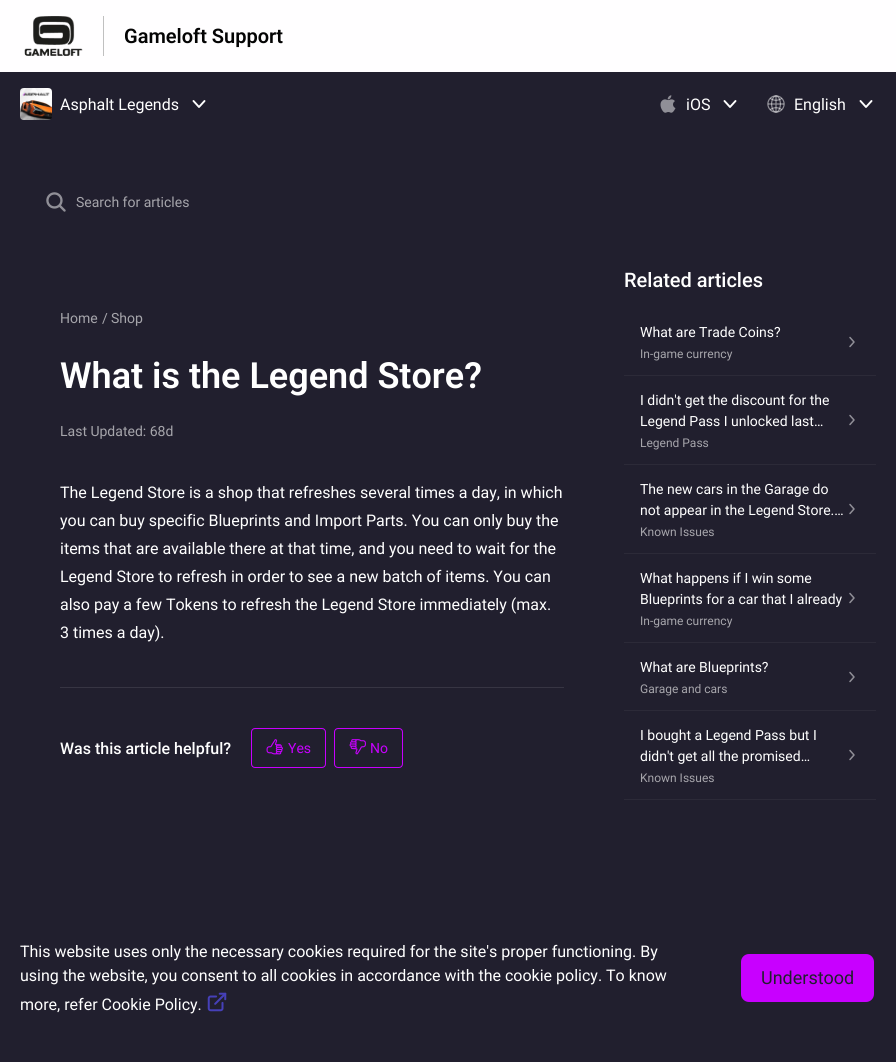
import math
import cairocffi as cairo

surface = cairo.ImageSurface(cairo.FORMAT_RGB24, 896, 1062)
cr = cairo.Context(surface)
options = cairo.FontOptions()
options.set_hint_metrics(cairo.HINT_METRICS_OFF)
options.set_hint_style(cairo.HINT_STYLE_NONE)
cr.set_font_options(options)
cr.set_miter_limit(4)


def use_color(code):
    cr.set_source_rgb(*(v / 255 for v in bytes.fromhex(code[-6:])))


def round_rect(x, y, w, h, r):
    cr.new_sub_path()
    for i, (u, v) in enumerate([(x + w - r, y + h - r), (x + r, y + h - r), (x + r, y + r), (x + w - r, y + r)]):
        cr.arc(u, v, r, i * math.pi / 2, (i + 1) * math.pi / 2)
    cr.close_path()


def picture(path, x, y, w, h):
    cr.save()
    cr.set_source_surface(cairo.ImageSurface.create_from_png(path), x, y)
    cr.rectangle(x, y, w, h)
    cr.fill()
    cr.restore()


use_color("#211f2e")
cr.paint()
use_color("#fffeff")
cr.rectangle(0, 0, 896, 72)
cr.fill()
use_color("#c0c0c0")
cr.rectangle(103, 16, 1, 40)
cr.fill()
picture("img1.png", 24, 16, 59, 40)
cr.select_font_face("Roboto SemiBold")
cr.set_font_size(20)
use_color("#040404")
cr.move_to(124, 43)
cr.show_text("Gameloft Support")
picture("img2.png", 20, 88, 32, 32)
cr.select_font_face("Roboto")
cr.set_font_size(16)
use_color("#ffffff")
cr.move_to(60, 110)
cr.show_text("Asphalt Legends")
cr.new_path()
cr.move_to(193.5, 101)
cr.line_to(199, 107)
cr.line_to(204.5, 101)
cr.set_line_width(1.9)
cr.set_line_cap(cairo.LINE_CAP_ROUND)
cr.set_line_join(cairo.LINE_JOIN_ROUND)
cr.stroke()
picture("img3.png", 660, 95, 16, 18)
cr.move_to(686, 110)
cr.show_text("iOS")
cr.new_path()
cr.move_to(724.5, 101)
cr.line_to(730, 107)
cr.line_to(735.5, 101)
cr.stroke()
picture("img4.png", 767, 95, 18, 18)
cr.move_to(794, 110)
cr.show_text("English")
cr.new_path()
cr.move_to(860.5, 101)
cr.line_to(866, 107)
cr.line_to(871.5, 101)
cr.stroke()
picture("img5.png", 46, 192, 20, 20)
cr.set_font_size(14)
use_color("#a6a5ab")
cr.move_to(76, 207)
cr.show_text("Search for articles")
cr.move_to(60, 323)
cr.show_text("Home")
cr.move_to(102, 323)
cr.show_text("/")
cr.move_to(111, 323)
cr.show_text("Shop")
cr.select_font_face("Roboto SemiBold")
cr.set_font_size(36)
use_color("#ffffff")
cr.move_to(60, 388)
cr.show_text("What is the Legend Store?")
cr.select_font_face("Roboto")
cr.set_font_size(14)
use_color("#a6a5ab")
cr.move_to(60, 436)
cr.show_text("Last Updated: 68d")
use_color("#373543")
cr.rectangle(60, 687, 504, 1)
cr.fill()
cr.set_font_size(16)
use_color("#ffffff")
cr.move_to(60, 498)
cr.show_text("The Legend Store is a shop that refreshes several times a day, in which")
cr.move_to(60, 526)
cr.show_text("you can buy specific Blueprints and Import Parts. You can only buy the")
cr.move_to(60, 554)
cr.show_text("items that are available there at that time, and you need to wait for the")
cr.move_to(60, 582)
cr.show_text("Legend Store to refresh in order to see a new batch of items. You can")
cr.move_to(60, 610)
cr.show_text("also pay a few Tokens to refresh the Legend Store immediately (max.")
cr.move_to(60, 638)
cr.show_text("3 times a day).")
cr.select_font_face("Roboto Medium")
cr.move_to(60, 754)
cr.show_text("Was this article helpful?")
round_rect(251.5, 728.5, 74, 39, 3.5)
use_color("#c800ff")
cr.set_line_width(1)
cr.set_line_cap(cairo.LINE_CAP_BUTT)
cr.set_line_join(cairo.LINE_JOIN_MITER)
cr.stroke()
picture("img6.png", 266, 739, 17, 16)
cr.select_font_face("Roboto")
cr.set_font_size(14)
cr.move_to(288, 753)
cr.show_text("Yes")
round_rect(334.5, 728.5, 68, 39, 3.5)
cr.stroke()
picture("img7.png", 349, 739, 17, 16)
cr.move_to(370, 753)
cr.show_text("No")
cr.select_font_face("Roboto Medium")
cr.set_font_size(20)
use_color("#ffffff")
cr.move_to(624, 287)
cr.show_text("Related articles")
use_color("#2c2a38")
cr.rectangle(624, 375, 252, 1)
cr.fill()
cr.select_font_face("Roboto")
cr.set_font_size(14)
use_color("#ffffff")
cr.move_to(640, 337)
cr.show_text("What are Trade Coins?")
cr.set_font_size(12)
use_color("#a6a5ab")
cr.move_to(640, 358)
cr.show_text("In-game currency")
cr.new_path()
cr.move_to(850, 337.5)
cr.line_to(854, 342)
cr.line_to(850, 346.5)
use_color("#908f97")
cr.set_line_width(1.5)
cr.set_line_cap(cairo.LINE_CAP_ROUND)
cr.set_line_join(cairo.LINE_JOIN_ROUND)
cr.stroke()
use_color("#2c2a38")
cr.rectangle(624, 464, 252, 1)
cr.fill()
cr.set_font_size(14)
use_color("#ffffff")
cr.move_to(640, 405)
cr.show_text("I didn't get the discount for the")
cr.move_to(640, 426)
cr.show_text("Legend Pass I unlocked last…")
cr.set_font_size(12)
use_color("#a6a5ab")
cr.move_to(640, 447)
cr.show_text("Legend Pass")
cr.new_path()
cr.move_to(850, 415.5)
cr.line_to(854, 420)
cr.line_to(850, 424.5)
use_color("#908f97")
cr.stroke()
use_color("#2c2a38")
cr.rectangle(624, 553, 252, 1)
cr.fill()
cr.set_font_size(14)
use_color("#ffffff")
cr.move_to(640, 494)
cr.show_text("The new cars in the Garage do")
cr.move_to(640, 515)
cr.show_text("not appear in the Legend Store.…")
cr.set_font_size(12)
use_color("#a6a5ab")
cr.move_to(640, 536)
cr.show_text("Known Issues")
cr.new_path()
cr.move_to(850, 504.5)
cr.line_to(854, 509)
cr.line_to(850, 513.5)
use_color("#908f97")
cr.stroke()
use_color("#2c2a38")
cr.rectangle(624, 642, 252, 1)
cr.fill()
cr.set_font_size(14)
use_color("#ffffff")
cr.move_to(640, 583)
cr.show_text("What happens if I win some")
cr.move_to(640, 604)
cr.show_text("Blueprints for a car that I already")
cr.set_font_size(12)
use_color("#a6a5ab")
cr.move_to(640, 625)
cr.show_text("In-game currency")
cr.new_path()
cr.move_to(850, 593.5)
cr.line_to(854, 598)
cr.line_to(850, 602.5)
use_color("#908f97")
cr.stroke()
use_color("#2c2a38")
cr.rectangle(624, 710, 252, 1)
cr.fill()
cr.set_font_size(14)
use_color("#ffffff")
cr.move_to(640, 672)
cr.show_text("What are Blueprints?")
cr.set_font_size(12)
use_color("#a6a5ab")
cr.move_to(640, 693)
cr.show_text("Garage and cars")
cr.new_path()
cr.move_to(850, 672.5)
cr.line_to(854, 677)
cr.line_to(850, 681.5)
use_color("#908f97")
cr.stroke()
use_color("#2c2a38")
cr.rectangle(624, 799, 252, 1)
cr.fill()
cr.set_font_size(14)
use_color("#ffffff")
cr.move_to(640, 740)
cr.show_text("I bought a Legend Pass but I")
cr.move_to(640, 761)
cr.show_text("didn't get all the promised…")
cr.set_font_size(12)
use_color("#a6a5ab")
cr.move_to(640, 782)
cr.show_text("Known Issues")
cr.new_path()
cr.move_to(850, 750.5)
cr.line_to(854, 755)
cr.line_to(850, 759.5)
use_color("#908f97")
cr.stroke()
cr.set_font_size(16)
use_color("#ffffff")
cr.move_to(20, 957)
cr.show_text("This website uses only the necessary cookies required for the site's proper functioning. By")
cr.move_to(20, 981)
cr.show_text("using the website, you consent to all cookies in accordance with the cookie policy. To know")
cr.move_to(20, 1010)
cr.show_text("more, refer Cookie Policy.")
picture("img8.png", 207, 992, 20, 20)
use_color("#c800ff")
round_rect(741, 954, 133, 48, 8)
cr.fill()
cr.set_font_size(18)
use_color("#211f2e")
cr.move_to(761, 984)
cr.show_text("Understood")
surface.write_to_png("result.png")
